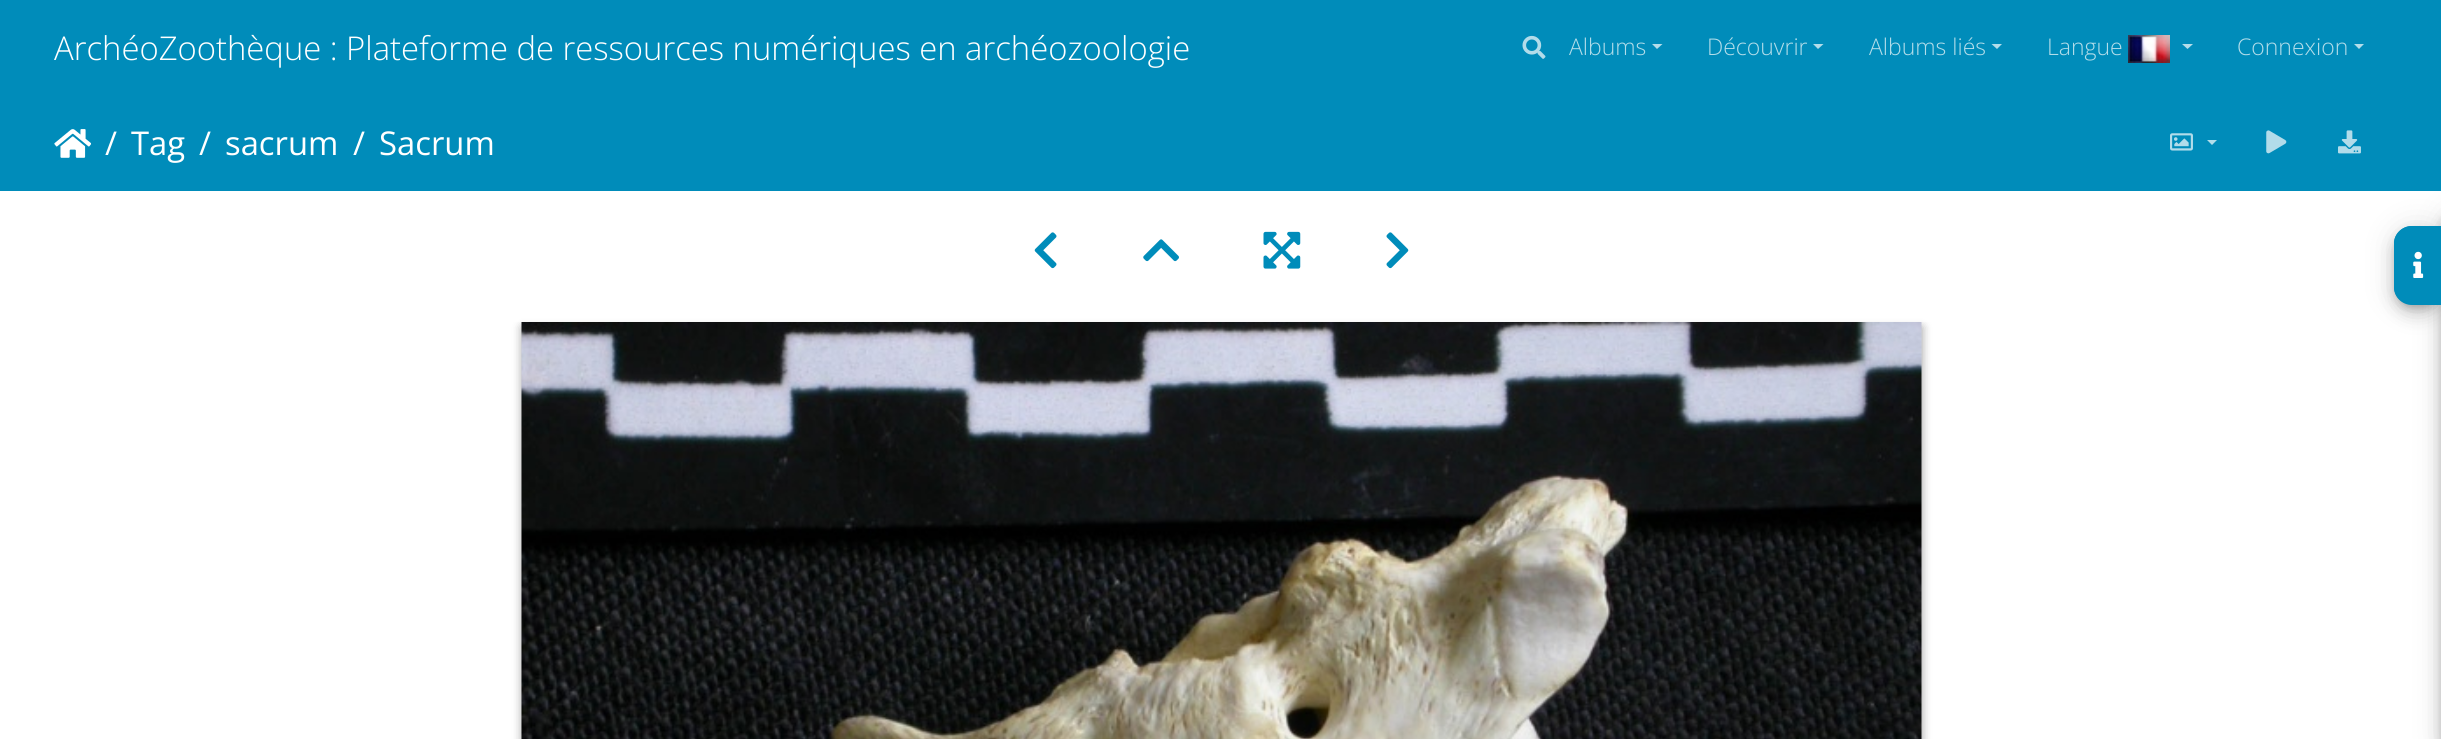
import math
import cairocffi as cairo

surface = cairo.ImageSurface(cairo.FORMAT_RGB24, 2441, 739)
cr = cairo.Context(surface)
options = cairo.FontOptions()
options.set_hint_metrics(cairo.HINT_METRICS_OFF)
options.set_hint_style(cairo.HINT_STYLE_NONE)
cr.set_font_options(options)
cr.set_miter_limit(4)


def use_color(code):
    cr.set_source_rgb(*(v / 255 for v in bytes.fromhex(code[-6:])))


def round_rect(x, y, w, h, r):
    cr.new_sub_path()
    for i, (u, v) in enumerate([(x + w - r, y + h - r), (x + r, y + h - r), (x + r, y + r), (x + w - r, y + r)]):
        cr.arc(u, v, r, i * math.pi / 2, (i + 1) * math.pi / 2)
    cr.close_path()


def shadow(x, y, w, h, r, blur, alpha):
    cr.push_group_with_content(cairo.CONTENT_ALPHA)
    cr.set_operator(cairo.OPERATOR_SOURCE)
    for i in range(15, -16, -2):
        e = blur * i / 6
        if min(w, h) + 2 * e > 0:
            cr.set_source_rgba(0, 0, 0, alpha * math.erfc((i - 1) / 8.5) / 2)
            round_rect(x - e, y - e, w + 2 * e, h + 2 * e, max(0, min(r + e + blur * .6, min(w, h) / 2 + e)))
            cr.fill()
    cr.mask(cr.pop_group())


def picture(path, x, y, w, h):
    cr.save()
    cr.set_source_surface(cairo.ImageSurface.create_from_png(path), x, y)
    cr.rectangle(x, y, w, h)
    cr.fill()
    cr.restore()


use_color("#ffffff")
cr.paint()
use_color("#000000")
shadow(2441, 210, 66, 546, 18, 16, 0.12)
shadow(2394, 228, 47, 78, 18, 16, 0.12)
use_color("#008cba")
cr.rectangle(0, 0, 2441, 191)
cr.fill()
cr.select_font_face("Open Sans Light")
cr.set_font_size(32.8)
use_color("#ffffff")
cr.move_to(54, 60)
cr.show_text("ArchéoZoothèque : Plateforme de ressources numériques en archéozoologie")
picture("img1.png", 1522, 35, 24, 24)
cr.set_font_size(23)
use_color("#b3ddea")
cr.move_to(1569, 55)
cr.show_text("Albums")
cr.new_path()
cr.move_to(1652, 44)
cr.line_to(1662.5, 44)
cr.line_to(1657, 49)
cr.close_path()
cr.fill()
cr.move_to(1707, 55)
cr.show_text("Découvrir")
cr.new_path()
cr.move_to(1813, 44)
cr.line_to(1823.5, 44)
cr.line_to(1818, 49)
cr.close_path()
cr.fill()
cr.move_to(1869, 55)
cr.show_text("Albums liés")
cr.new_path()
cr.move_to(1991.5, 44)
cr.line_to(2002, 44)
cr.line_to(1997, 49)
cr.close_path()
cr.fill()
cr.move_to(2047, 55)
cr.show_text("Langue")
picture("img2.png", 2128, 35, 42, 28)
cr.new_path()
cr.move_to(2182, 44)
cr.line_to(2193, 44)
cr.line_to(2187.5, 49)
cr.close_path()
cr.fill()
cr.move_to(2237, 55)
cr.show_text("Connexion")
cr.new_path()
cr.move_to(2354, 44)
cr.line_to(2364, 44)
cr.line_to(2359, 49)
cr.close_path()
cr.fill()
picture("img3.png", 54, 129, 37, 29)
cr.select_font_face("Open Sans")
cr.set_font_size(32.8)
use_color("#ffffff")
cr.move_to(105, 155)
cr.show_text("/")
cr.move_to(131, 155)
cr.show_text("Tag")
cr.move_to(199, 155)
cr.show_text("/")
cr.move_to(225, 155)
cr.show_text("sacrum")
cr.move_to(353, 155)
cr.show_text("/")
cr.move_to(379, 155)
cr.show_text("Sacrum")
picture("img4.png", 2170, 133, 23, 18)
use_color("#b3ddea")
cr.new_path()
cr.move_to(2207, 140)
cr.line_to(2217, 140)
cr.line_to(2212, 145)
cr.close_path()
cr.fill()
picture("img5.png", 2266, 130, 21, 24)
picture("img6.png", 2338, 130, 23, 24)
picture("img7.png", 1034, 232, 23, 37)
picture("img8.png", 1143, 239, 36, 23)
picture("img9.png", 1263, 231, 38, 38)
picture("img10.png", 1386, 232, 23, 37)
use_color("#000000")
shadow(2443, 215, 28, 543, 16, 4.5, 0.2)
shadow(2441, 219, 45, 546, 18, 9, 0.14)
shadow(2396, 233, 44, 75, 16, 4.5, 0.2)
shadow(2394, 236, 47, 79, 18, 9, 0.14)
use_color("#008cba")
cr.new_path()
cr.move_to(2412, 226)
cr.line_to(2441, 226)
cr.line_to(2441, 305)
cr.line_to(2412, 305)
cr.curve_to(2402, 305, 2394, 297, 2394, 287)
cr.line_to(2394, 244)
cr.curve_to(2394, 234, 2402, 226, 2412, 226)
cr.close_path()
cr.fill()
cr.set_fill_rule(cairo.FILL_RULE_EVEN_ODD)
cr.new_path()
cr.move_to(2412, 226)
cr.line_to(2441, 226)
cr.line_to(2441, 304)
cr.line_to(2412, 304)
cr.curve_to(2402, 304, 2394, 297, 2394, 287)
cr.line_to(2394, 243)
cr.curve_to(2394, 234, 2402, 226, 2412, 226)
cr.close_path()
cr.move_to(2412, 228)
cr.line_to(2441, 228)
cr.line_to(2441, 303)
cr.line_to(2412, 303)
cr.curve_to(2403, 303, 2396, 296, 2396, 287)
cr.line_to(2396, 243)
cr.curve_to(2396, 235, 2403, 228, 2412, 228)
cr.close_path()
cr.fill()
picture("img11.png", 2413, 251, 11, 27)
cr.save()
cr.set_fill_rule(cairo.FILL_RULE_WINDING)
cr.rectangle(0, 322, 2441, 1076)
cr.clip()
use_color("#000000")
shadow(522, 327, 1400, 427, 0, 5, 0.23)
cr.restore()
use_color("#000000")
shadow(522, 327, 1400, 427, 0, 5, 0.16)
picture("img12.png", 521, 322, 1401, 417)
surface.write_to_png("result.png")
